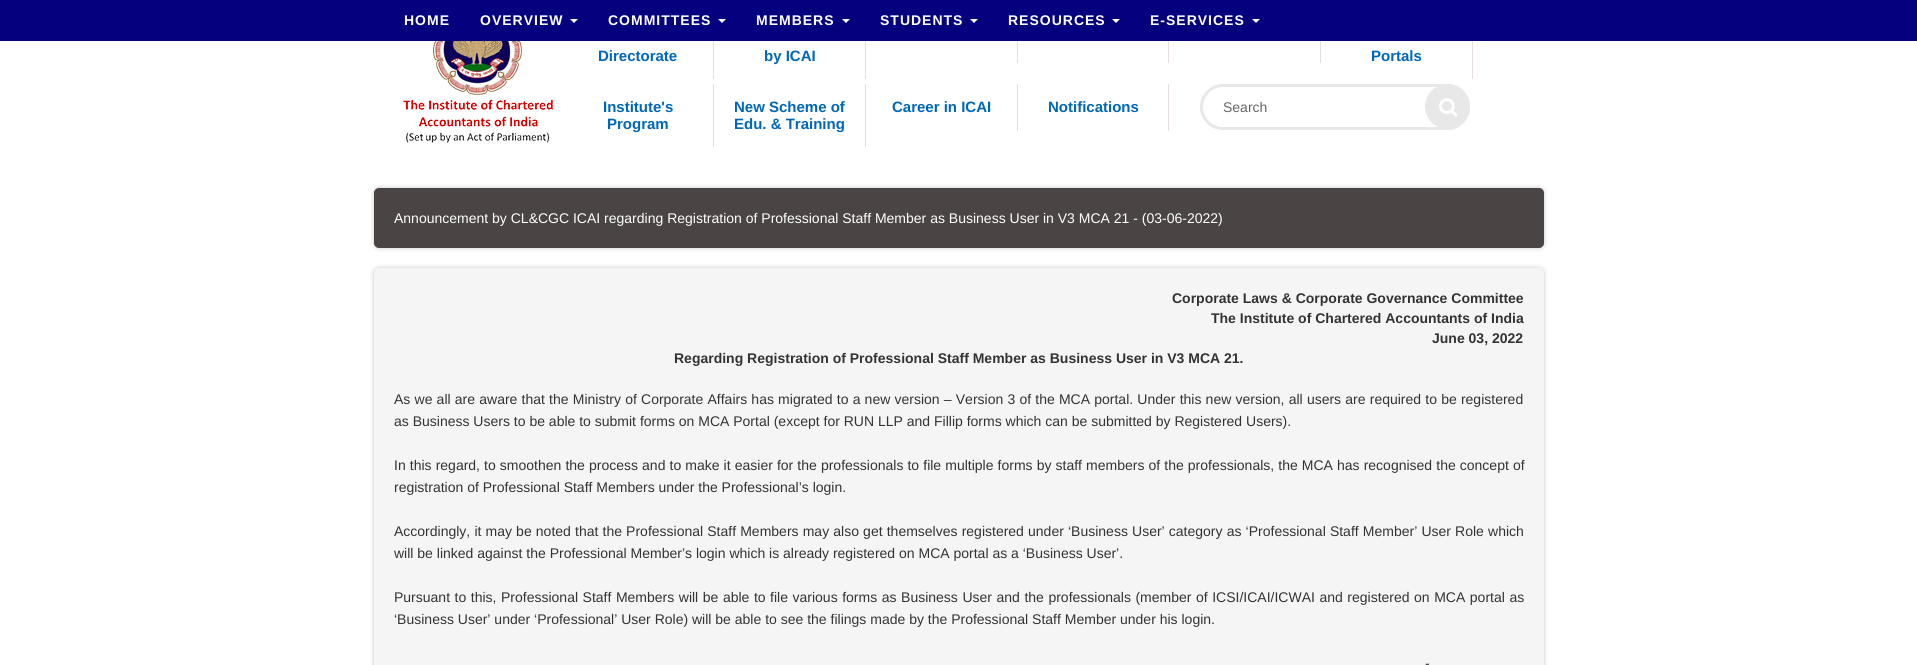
import math
import cairocffi as cairo

surface = cairo.ImageSurface(cairo.FORMAT_RGB24, 1917, 665)
cr = cairo.Context(surface)
options = cairo.FontOptions()
options.set_hint_metrics(cairo.HINT_METRICS_OFF)
options.set_hint_style(cairo.HINT_STYLE_NONE)
cr.set_font_options(options)
cr.set_miter_limit(4)


def use_color(code):
    cr.set_source_rgb(*(v / 255 for v in bytes.fromhex(code[-6:])))


def spaced_text(x, y, s, letter, word):
    cr.move_to(x, y)
    for ch in s:
        cr.show_text(ch)
        cr.rel_move_to(letter + word * (ch == ' '), 0)


def round_rect(x, y, w, h, r):
    cr.new_sub_path()
    for i, (u, v) in enumerate([(x + w - r, y + h - r), (x + r, y + h - r), (x + r, y + r), (x + w - r, y + r)]):
        cr.arc(u, v, r, i * math.pi / 2, (i + 1) * math.pi / 2)
    cr.close_path()


def shadow(x, y, w, h, r, blur, alpha):
    cr.push_group_with_content(cairo.CONTENT_ALPHA)
    cr.set_operator(cairo.OPERATOR_SOURCE)
    for i in range(15, -16, -2):
        e = blur * i / 6
        if min(w, h) + 2 * e > 0:
            cr.set_source_rgba(0, 0, 0, alpha * math.erfc((i - 1) / 8.5) / 2)
            round_rect(x - e, y - e, w + 2 * e, h + 2 * e, max(0, min(r + e + blur * .6, min(w, h) / 2 + e)))
            cr.fill()
    cr.mask(cr.pop_group())


def picture(path, x, y, w, h):
    cr.save()
    cr.set_source_surface(cairo.ImageSurface.create_from_png(path), x, y)
    cr.rectangle(x, y, w, h)
    cr.fill()
    cr.restore()


use_color("#ffffff")
cr.paint()
use_color("#05007e")
cr.rectangle(0, 0, 1917, 41)
cr.fill()
cr.select_font_face("Liberation Sans", cairo.FONT_SLANT_NORMAL, cairo.FONT_WEIGHT_BOLD)
cr.set_font_size(14)
use_color("#ffffff")
spaced_text(404, 25, "HOME", 1, 0)
spaced_text(480, 25, "OVERVIEW", 1, 0)
cr.new_path()
cr.move_to(570, 19)
cr.line_to(578, 19)
cr.line_to(574, 23)
cr.close_path()
cr.fill()
spaced_text(608, 25, "COMMITTEES", 1, 0)
cr.new_path()
cr.move_to(718, 19)
cr.line_to(726, 19)
cr.line_to(722, 23)
cr.close_path()
cr.fill()
spaced_text(756, 25, "MEMBERS", 1, 0)
cr.new_path()
cr.move_to(842, 19)
cr.line_to(850, 19)
cr.line_to(846, 23)
cr.close_path()
cr.fill()
spaced_text(880, 25, "STUDENTS", 1, 0)
cr.new_path()
cr.move_to(970, 19)
cr.line_to(978, 19)
cr.line_to(974, 23)
cr.close_path()
cr.fill()
spaced_text(1008, 25, "RESOURCES", 1, 0)
cr.new_path()
cr.move_to(1112, 19)
cr.line_to(1120, 19)
cr.line_to(1116, 23)
cr.close_path()
cr.fill()
spaced_text(1150, 25, "E-SERVICES", 1, 0)
cr.new_path()
cr.move_to(1252, 19)
cr.line_to(1260, 19)
cr.line_to(1256, 23)
cr.close_path()
cr.fill()
picture("img1.png", 403, 41, 150, 102)
use_color("#e6dede")
cr.rectangle(713, 41, 1, 38)
cr.fill()
cr.set_font_size(15)
use_color("#0067b8")
cr.move_to(598, 61)
cr.show_text("Directorate")
use_color("#e6dede")
cr.rectangle(865, 41, 1, 38)
cr.fill()
use_color("#0067b8")
cr.move_to(764, 61)
cr.show_text("by ICAI")
use_color("#e6dede")
cr.rectangle(1017, 41, 1, 22)
cr.fill()
cr.rectangle(1168, 41, 1, 22)
cr.fill()
cr.rectangle(1320, 41, 1, 22)
cr.fill()
cr.rectangle(1472, 41, 1, 38)
cr.fill()
use_color("#0067b8")
cr.move_to(1371, 61)
cr.show_text("Portals")
use_color("#e6dede")
cr.rectangle(713, 84, 1, 63)
cr.fill()
use_color("#0067b8")
cr.move_to(603, 112)
cr.show_text("Institute's")
cr.move_to(607, 129)
cr.show_text("Program")
use_color("#e6dede")
cr.rectangle(865, 84, 1, 63)
cr.fill()
use_color("#0067b8")
cr.move_to(734, 112)
cr.show_text("New Scheme of")
cr.move_to(734, 129)
cr.show_text("Edu. & Training")
use_color("#e6dede")
cr.rectangle(1017, 84, 1, 47)
cr.fill()
use_color("#0067b8")
cr.move_to(892, 112)
cr.show_text("Career in ICAI")
use_color("#e6dede")
cr.rectangle(1168, 84, 1, 47)
cr.fill()
use_color("#0067b8")
cr.move_to(1048, 112)
cr.show_text("Notifications")
round_rect(1201.5, 85.5, 267, 43, 21.5)
use_color("#e8e8e8")
cr.set_line_width(3)
cr.stroke()
cr.select_font_face("Liberation Sans")
cr.set_font_size(14)
use_color("#666666")
cr.move_to(1223, 112)
cr.show_text("Search")
use_color("#e8e8e8")
cr.new_path()
cr.arc(1447.5, 106.5, 22.5, 0, 2 * math.pi)
cr.fill()
picture("img2.png", 1439, 98, 19, 19)
use_color("#000000")
shadow(374, 188, 1170, 60, 5, 2.5, 0.22)
use_color("#4a4444")
round_rect(374, 188, 1170, 60, 5)
cr.fill()
use_color("#ffffff")
cr.move_to(394, 223)
cr.show_text("Announcement by CL&CGC ICAI regarding Registration of Professional Staff Member as Business User in V3 MCA 21 - (03-06-2022)")
use_color("#000000")
shadow(374, 268, 1170, 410, 5, 2.5, 0.22)
use_color("#f5f5f5")
round_rect(374, 268, 1170, 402, 5)
cr.fill()
cr.select_font_face("Liberation Sans", cairo.FONT_SLANT_NORMAL, cairo.FONT_WEIGHT_BOLD)
use_color("#333333")
cr.move_to(1172, 303)
cr.show_text("Corporate Laws & Corporate Governance Committee")
cr.move_to(1211, 323)
cr.show_text("The Institute of Chartered Accountants of India")
cr.move_to(1432, 343)
cr.show_text("June 03, 2022")
cr.move_to(674, 363)
cr.show_text("Regarding Registration of Professional Staff Member as Business User in V3 MCA 21.")
cr.select_font_face("Liberation Sans")
spaced_text(394, 404, "As we all are aware that the Ministry of Corporate Affairs has migrated to a new version – Version 3 of the MCA portal. Under this new version, all users are required to be registered", 0, 0.3)
cr.move_to(394, 426)
cr.show_text("as Business Users to be able to submit forms on MCA Portal (except for RUN LLP and Fillip forms which can be submitted by Registered Users).")
spaced_text(394, 470, "In this regard, to smoothen the process and to make it easier for the professionals to file multiple forms by staff members of the professionals, the MCA has recognised the concept of", 0, 0.2)
cr.move_to(394, 492)
cr.show_text("registration of Professional Staff Members under the Professional’s login.")
spaced_text(394, 536, "Accordingly, it may be noted that the Professional Staff Members may also get themselves registered under ‘Business User’ category as ‘Professional Staff Member’ User Role which", 0, 0.25)
cr.move_to(394, 558)
cr.show_text("will be linked against the Professional Member’s login which is already registered on MCA portal as a ‘Business User’.")
spaced_text(394, 602, "Pursuant to this, Professional Staff Members will be able to file various forms as Business User and the professionals (member of ICSI/ICAI/ICWAI and registered on MCA portal as", 0, 0.65)
cr.move_to(394, 624)
cr.show_text("‘Business User’ under ‘Professional’ User Role) will be able to see the filings made by the Professional Staff Member under his login.")
cr.move_to(1425, 668)
cr.show_text("-")
surface.write_to_png("result.png")
